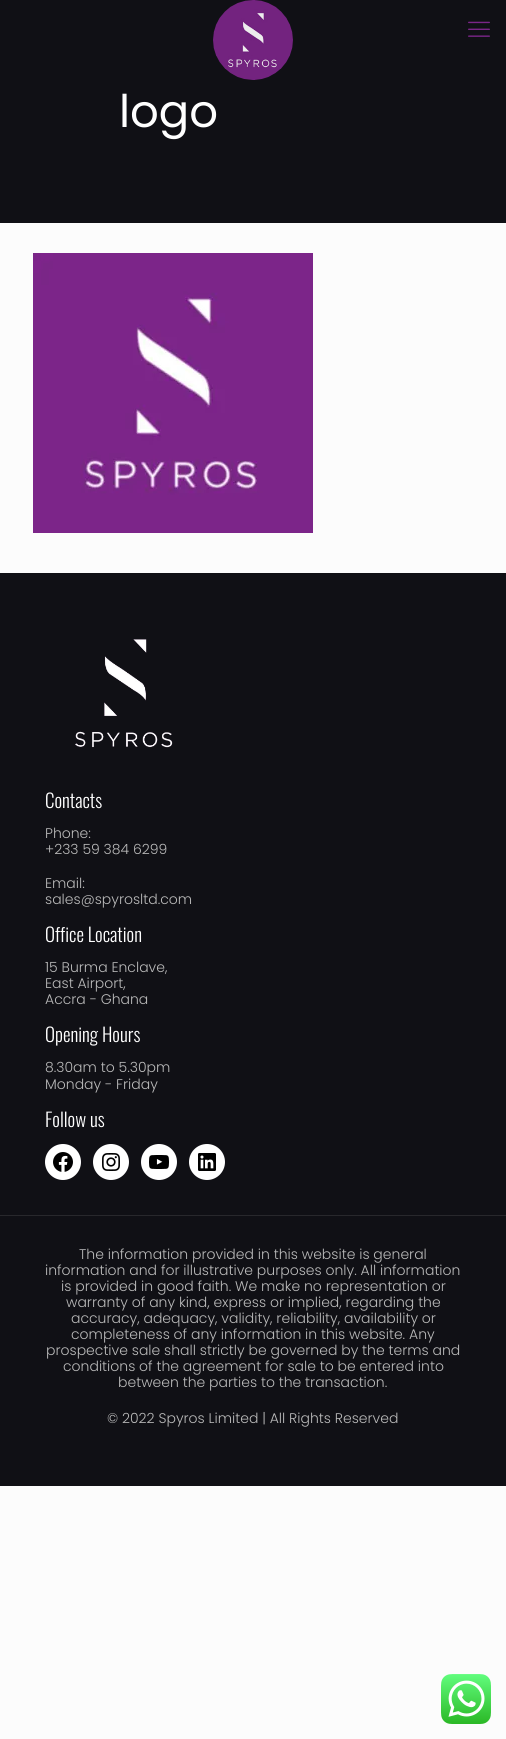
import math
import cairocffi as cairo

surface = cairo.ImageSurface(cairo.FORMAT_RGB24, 506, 1739)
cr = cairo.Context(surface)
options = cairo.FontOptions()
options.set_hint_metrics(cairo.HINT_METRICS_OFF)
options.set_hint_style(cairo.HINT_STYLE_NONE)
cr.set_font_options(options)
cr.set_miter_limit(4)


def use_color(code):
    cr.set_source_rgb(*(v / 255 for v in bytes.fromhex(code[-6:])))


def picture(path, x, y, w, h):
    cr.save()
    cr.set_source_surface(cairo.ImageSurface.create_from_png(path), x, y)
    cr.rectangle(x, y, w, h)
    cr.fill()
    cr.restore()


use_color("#fcfcfc")
cr.paint()
use_color("#101015")
cr.rectangle(0, 0, 506, 223)
cr.fill()
picture("img1.png", 213, 0, 80, 80)
picture("img2.png", 468, 21, 22, 16)
cr.select_font_face("Poppins")
cr.set_font_size(45)
use_color("#ffffff")
cr.move_to(119, 127)
cr.show_text("logo")
picture("img3.png", 33, 253, 280, 280)
use_color("#101015")
cr.rectangle(0, 573, 506, 913)
cr.fill()
picture("img4.png", 75, 639, 98, 109)
cr.select_font_face("Oswald Light")
cr.set_font_size(19)
use_color("#ffffff")
cr.move_to(45, 808)
cr.show_text("Contacts")
cr.select_font_face("Poppins Light")
cr.set_font_size(14)
use_color("#bababa")
cr.move_to(45, 838)
cr.show_text("Phone:")
cr.move_to(45, 854)
cr.show_text("+233 59 384 6299")
cr.move_to(45, 888)
cr.show_text("Email:")
cr.move_to(45, 904)
cr.show_text("sales@spyrosltd.com")
cr.select_font_face("Oswald Light")
cr.set_font_size(19)
use_color("#ffffff")
cr.move_to(45, 942)
cr.show_text("Office Location")
cr.select_font_face("Poppins Light")
cr.set_font_size(14)
use_color("#bababa")
cr.move_to(45, 972)
cr.show_text("15 Burma Enclave,")
cr.move_to(45, 988)
cr.show_text("East Airport,")
cr.move_to(45, 1004)
cr.show_text("Accra - Ghana")
cr.select_font_face("Oswald Light")
cr.set_font_size(19)
use_color("#ffffff")
cr.move_to(45, 1042)
cr.show_text("Opening Hours")
cr.select_font_face("Poppins Light")
cr.set_font_size(14)
use_color("#bababa")
cr.move_to(45, 1072)
cr.show_text("8.30am to 5.30pm")
cr.move_to(45, 1089)
cr.show_text("Monday - Friday")
cr.select_font_face("Oswald Light")
cr.set_font_size(19)
use_color("#ffffff")
cr.move_to(45, 1127)
cr.show_text("Follow us")
cr.new_path()
cr.arc(63, 1162, 18, 0, 2 * math.pi)
cr.fill()
picture("img5.png", 53, 1152, 20, 20)
cr.arc(111, 1162, 18, 0, 2 * math.pi)
cr.fill()
picture("img6.png", 102, 1153, 18, 18)
cr.arc(159, 1162, 18, 0, 2 * math.pi)
cr.fill()
picture("img7.png", 149, 1155, 20, 14)
cr.arc(207, 1162, 18, 0, 2 * math.pi)
cr.fill()
picture("img8.png", 198, 1153, 18, 18)
use_color("#28282c")
cr.rectangle(0, 1215, 506, 1)
cr.fill()
cr.select_font_face("Poppins Light")
cr.set_font_size(14)
use_color("#bababa")
cr.move_to(79, 1259)
cr.show_text("The information provided in this website is general")
cr.move_to(45, 1275)
cr.show_text("information and for illustrative purposes only. All information")
cr.move_to(61, 1291)
cr.show_text("is provided in good faith. We make no representation or")
cr.move_to(66, 1307)
cr.show_text("warranty of any kind, express or implied, regarding the")
cr.move_to(71, 1323)
cr.show_text("accuracy, adequacy, validity, reliability, availability or")
cr.move_to(71, 1339)
cr.show_text("completeness of any information in this website. Any")
cr.move_to(46, 1355)
cr.show_text("prospective sale shall strictly be governed by the terms and")
cr.move_to(63, 1371)
cr.show_text("conditions of the agreement for sale to be entered into")
cr.move_to(118, 1387)
cr.show_text("between the parties to the transaction.")
cr.move_to(107, 1423)
cr.show_text("© 2022 Spyros Limited | All Rights Reserved")
picture("img9.png", 441, 1674, 50, 50)
surface.write_to_png("result.png")
